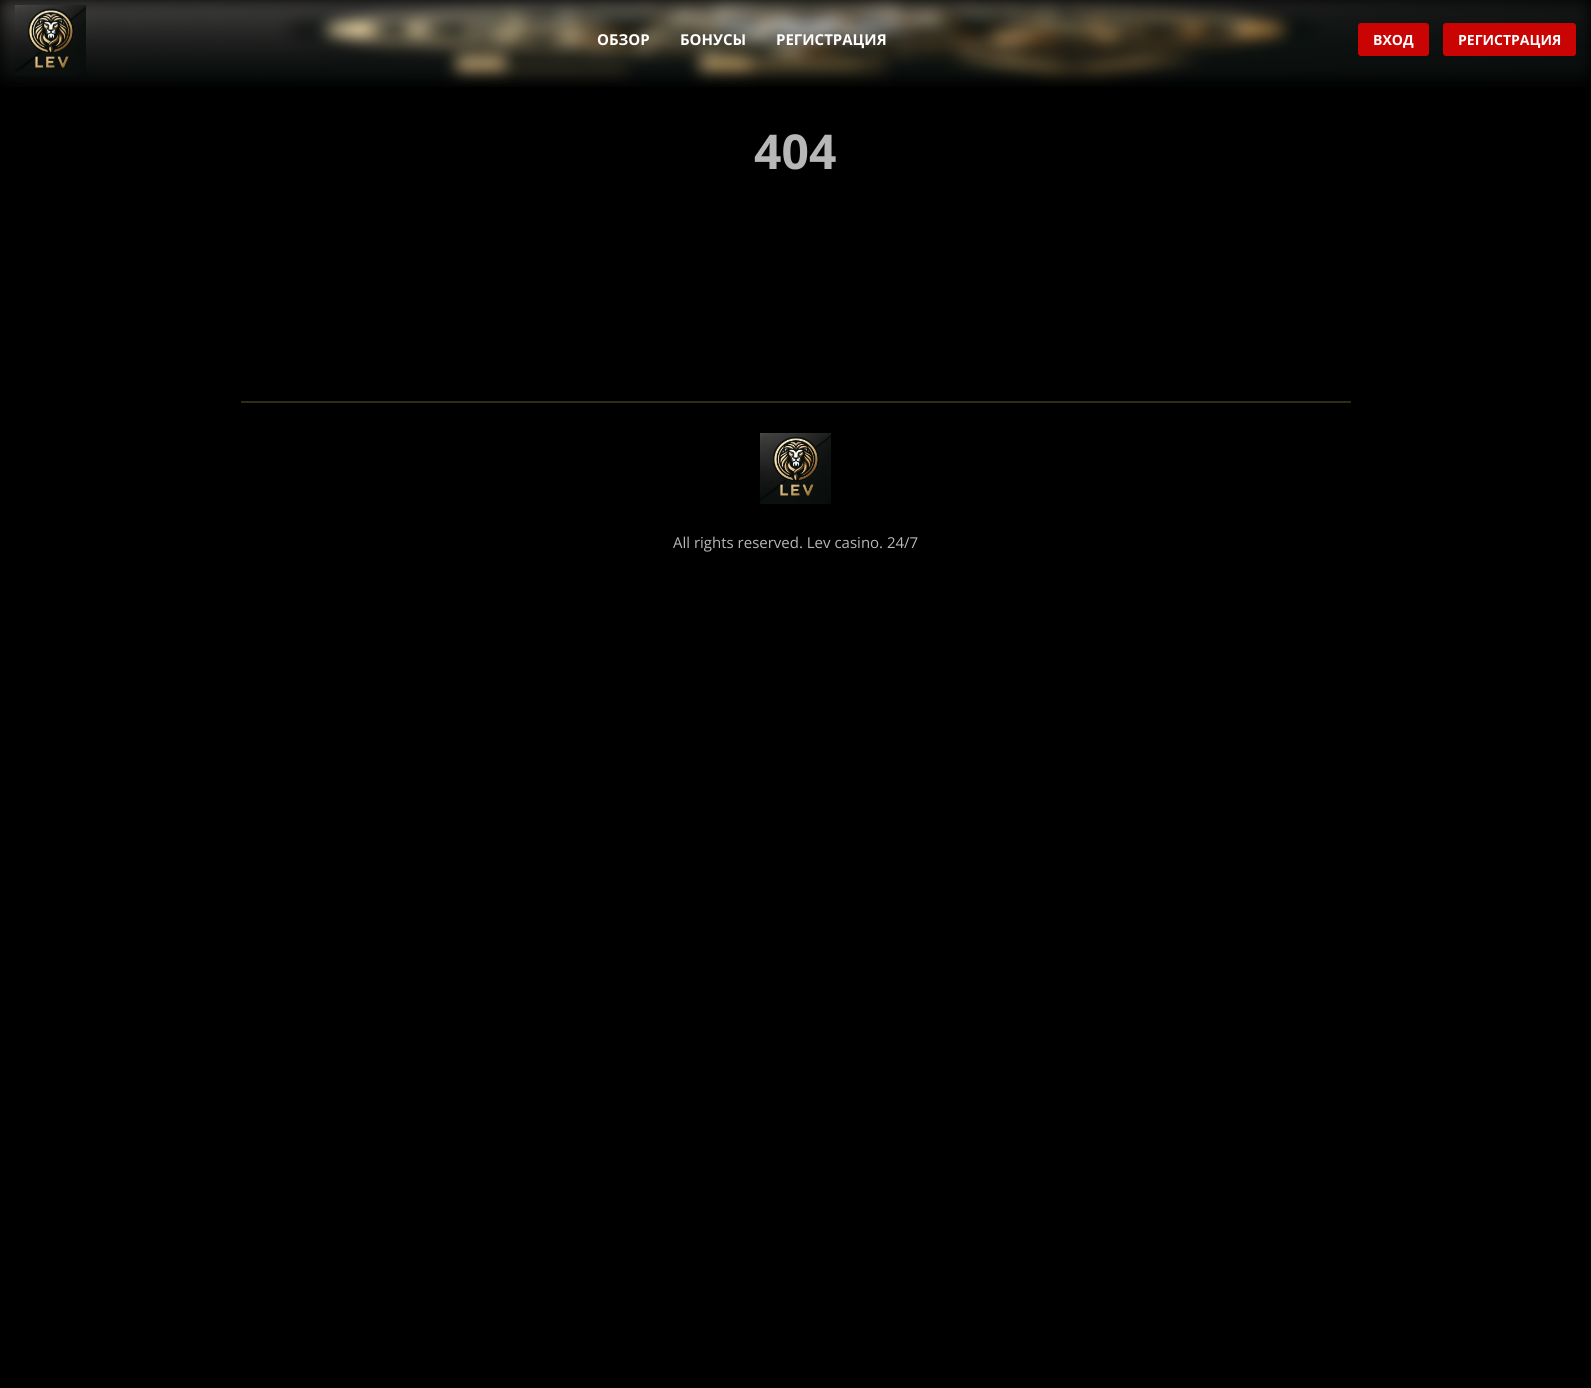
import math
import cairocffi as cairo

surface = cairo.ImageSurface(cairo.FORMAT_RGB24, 1591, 1388)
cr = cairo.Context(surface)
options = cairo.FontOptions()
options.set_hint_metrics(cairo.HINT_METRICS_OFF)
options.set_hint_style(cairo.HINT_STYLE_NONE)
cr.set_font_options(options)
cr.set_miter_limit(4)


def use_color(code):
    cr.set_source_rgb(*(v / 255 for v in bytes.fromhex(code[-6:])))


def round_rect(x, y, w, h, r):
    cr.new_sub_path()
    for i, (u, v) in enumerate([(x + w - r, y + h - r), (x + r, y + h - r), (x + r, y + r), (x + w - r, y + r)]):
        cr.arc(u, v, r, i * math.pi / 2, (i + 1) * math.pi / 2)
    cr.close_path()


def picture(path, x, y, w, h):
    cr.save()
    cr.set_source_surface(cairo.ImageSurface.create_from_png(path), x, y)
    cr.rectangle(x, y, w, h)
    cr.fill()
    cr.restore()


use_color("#000000")
cr.paint()
picture("img1.png", 0, 0, 1591, 87)
picture("img2.png", 15, 5, 71, 71)
cr.select_font_face("Open Sans", cairo.FONT_SLANT_NORMAL, cairo.FONT_WEIGHT_BOLD)
cr.set_font_size(15)
use_color("#ffffff")
cr.move_to(597, 45)
cr.show_text("ОБЗОР")
cr.move_to(680, 45)
cr.show_text("БОНУСЫ")
cr.move_to(776, 45)
cr.show_text("РЕГИСТРАЦИЯ")
use_color("#ca0303")
round_rect(1358, 23, 71, 33, 3)
cr.fill()
cr.set_font_size(14)
use_color("#ffffff")
cr.move_to(1373, 45)
cr.show_text("ВХОД")
use_color("#ca0303")
round_rect(1443, 23, 133, 33, 3)
cr.fill()
use_color("#ffffff")
cr.move_to(1458, 45)
cr.show_text("РЕГИСТРАЦИЯ")
cr.set_font_size(48)
use_color("#b7b7b7")
cr.move_to(754, 169)
cr.show_text("404")
use_color("#2e2b1b")
cr.rectangle(241, 401, 1110, 2)
cr.fill()
picture("img3.png", 760, 433, 71, 71)
cr.select_font_face("Open Sans")
cr.set_font_size(15)
use_color("#b7b7b7")
cr.move_to(673, 548)
cr.show_text("All rights reserved. Lev casino. 24/7")
surface.write_to_png("result.png")
